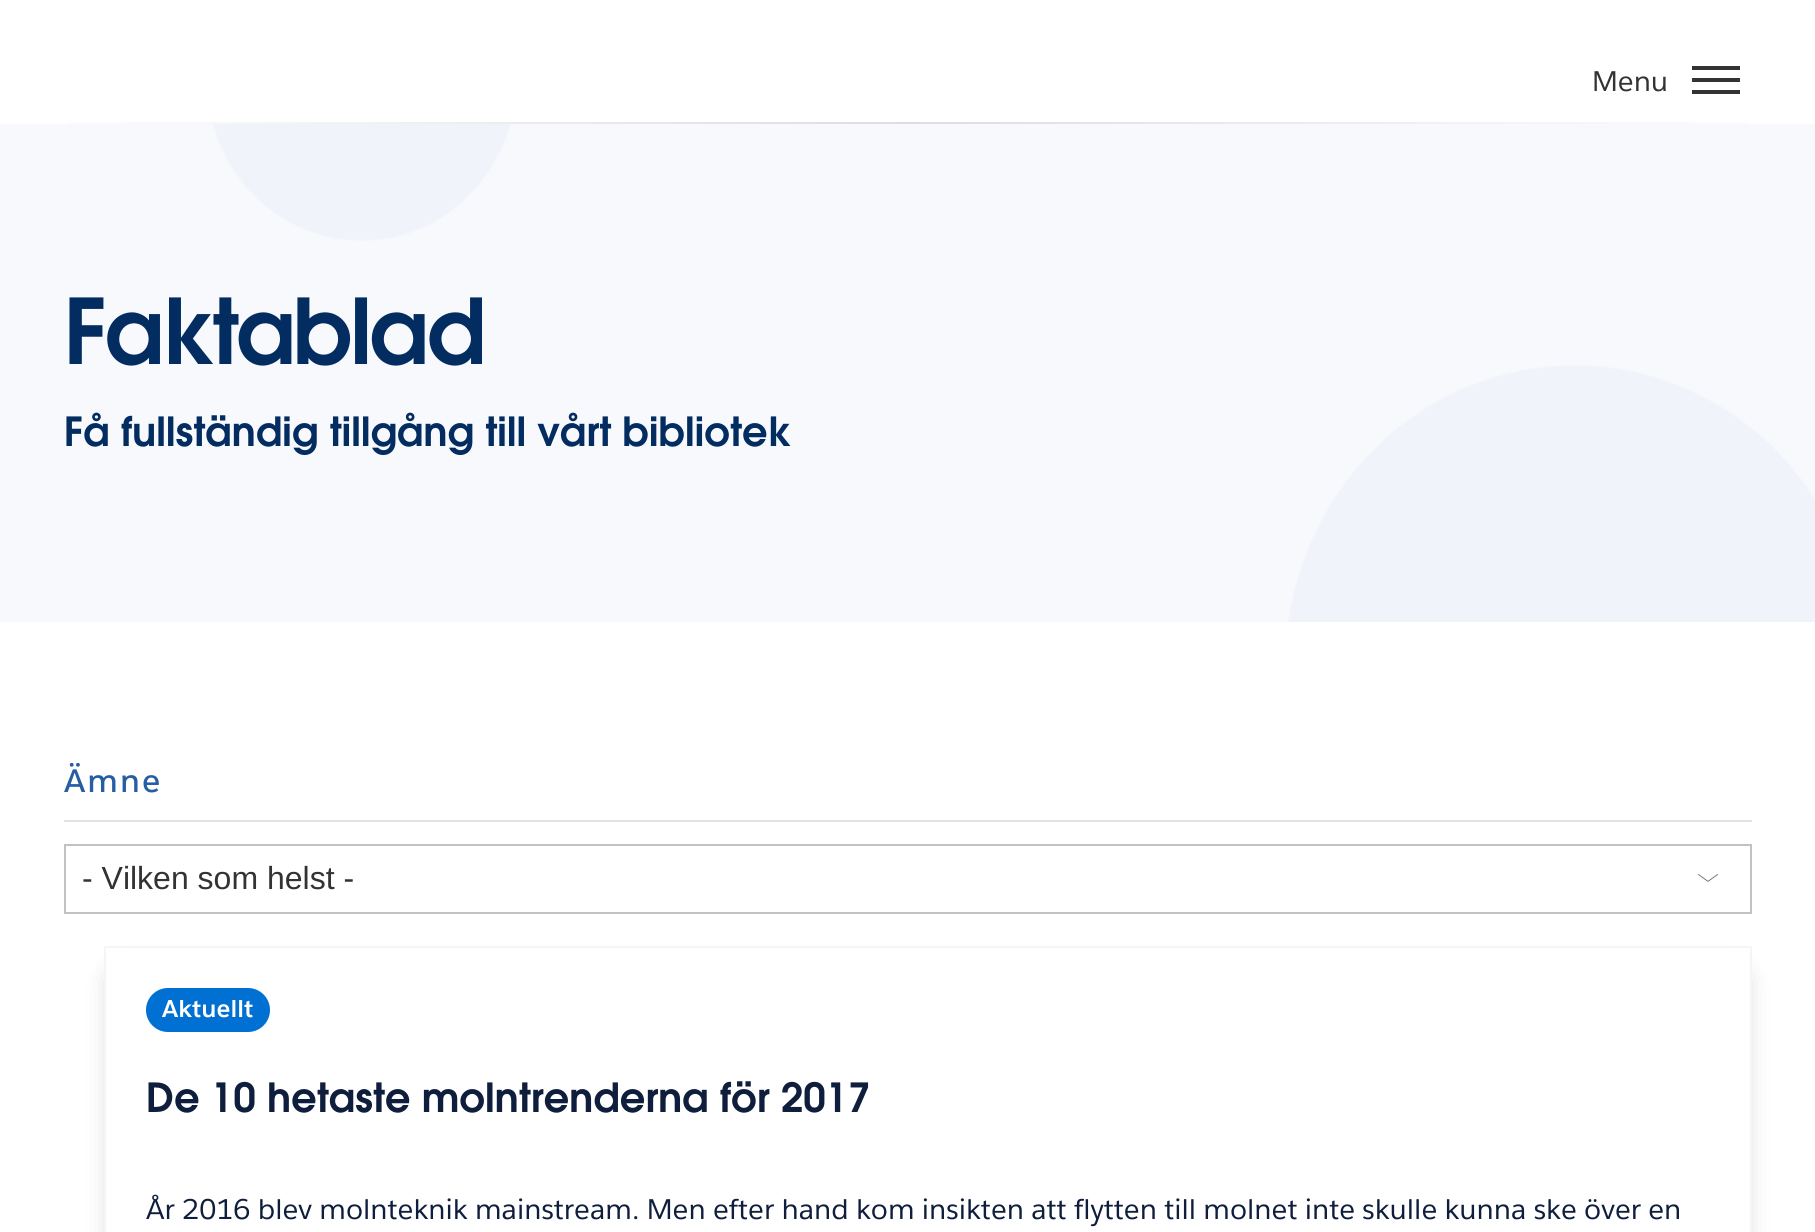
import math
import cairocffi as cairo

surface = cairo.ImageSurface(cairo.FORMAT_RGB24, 1815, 1232)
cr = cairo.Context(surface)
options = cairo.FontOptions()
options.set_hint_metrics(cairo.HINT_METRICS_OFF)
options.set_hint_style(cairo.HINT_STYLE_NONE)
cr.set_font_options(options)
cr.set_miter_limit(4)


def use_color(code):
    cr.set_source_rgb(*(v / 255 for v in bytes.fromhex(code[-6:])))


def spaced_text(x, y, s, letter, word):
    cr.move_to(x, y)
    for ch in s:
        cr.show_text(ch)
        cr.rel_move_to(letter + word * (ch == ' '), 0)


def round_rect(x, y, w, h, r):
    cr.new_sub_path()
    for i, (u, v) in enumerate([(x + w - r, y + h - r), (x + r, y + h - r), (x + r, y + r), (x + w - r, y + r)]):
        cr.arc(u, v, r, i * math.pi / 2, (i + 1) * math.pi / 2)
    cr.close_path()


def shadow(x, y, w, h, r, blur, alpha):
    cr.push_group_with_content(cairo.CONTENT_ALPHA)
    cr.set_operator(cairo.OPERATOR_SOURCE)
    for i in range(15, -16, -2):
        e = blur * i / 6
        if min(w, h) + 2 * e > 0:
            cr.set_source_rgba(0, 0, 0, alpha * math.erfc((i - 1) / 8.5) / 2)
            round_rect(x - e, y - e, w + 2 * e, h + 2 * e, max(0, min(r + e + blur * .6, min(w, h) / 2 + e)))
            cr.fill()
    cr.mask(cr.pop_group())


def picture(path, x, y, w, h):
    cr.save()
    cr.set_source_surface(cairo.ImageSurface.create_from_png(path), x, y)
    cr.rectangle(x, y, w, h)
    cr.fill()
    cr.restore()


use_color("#ffffff")
cr.paint()
cr.select_font_face("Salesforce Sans")
cr.set_font_size(28)
use_color("#333333")
cr.move_to(1592, 91)
cr.show_text("Menu")
cr.rectangle(1692, 78, 48, 4)
cr.fill()
cr.rectangle(1692, 66, 48, 4)
cr.fill()
cr.rectangle(1692, 90, 48, 4)
cr.fill()
gradient = cairo.LinearGradient(0, 123, 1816, 123)
gradient.add_color_stop_rgba(0, 1, 1, 1, 1)
gradient.add_color_stop_rgba(0.5, 0.871, 0.871, 0.871, 1)
gradient.add_color_stop_rgba(1, 1, 1, 1, 1)
cr.set_source(gradient)
cr.rectangle(69, 122, 1678, 2)
cr.fill()
picture("img1.png", 0, 124, 1815, 498)
picture("img2.png", 69, 297, 413, 69)
picture("img3.png", 66, 412, 725, 43)
use_color("#e3e3e3")
cr.rectangle(64, 820, 1688, 2)
cr.fill()
cr.select_font_face("Salesforce Sans SemiBold")
cr.set_font_size(32)
use_color("#275da5")
spaced_text(64, 792, "Ämne", 2, 0)
picture("img4.png", 1698, 874, 20, 8)
cr.rectangle(65, 845, 1686, 68)
use_color("#c2c2c2")
cr.stroke()
cr.select_font_face("Liberation Sans")
use_color("#333333")
cr.move_to(82, 889)
cr.show_text("- Vilken som helst -")
cr.save()
cr.set_fill_rule(cairo.FILL_RULE_EVEN_ODD)
cr.new_path()
cr.move_to(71, 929)
cr.line_to(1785, 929)
cr.line_to(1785, 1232)
cr.line_to(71, 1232)
cr.close_path()
cr.move_to(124, 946)
cr.line_to(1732, 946)
cr.curve_to(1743, 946, 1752, 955, 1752, 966)
cr.line_to(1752, 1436)
cr.curve_to(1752, 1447, 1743, 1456, 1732, 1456)
cr.line_to(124, 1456)
cr.curve_to(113, 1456, 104, 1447, 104, 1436)
cr.line_to(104, 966)
cr.curve_to(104, 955, 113, 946, 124, 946)
cr.close_path()
cr.clip()
use_color("#181818")
shadow(108, 966, 1640, 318, 16, 12, 0.16)
cr.restore()
cr.rectangle(105, 947, 1646, 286)
cr.set_source_rgba(0.094, 0.094, 0.094, 0.04)
cr.stroke()
use_color("#0070d2")
round_rect(146, 988, 124, 44, 22)
cr.fill()
cr.select_font_face("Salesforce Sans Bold", cairo.FONT_SLANT_NORMAL, cairo.FONT_WEIGHT_BOLD)
cr.set_font_size(24)
use_color("#ffffff")
spaced_text(162, 1017, "Aktuellt", 0.04, 0)
picture("img5.png", 148, 1081, 721, 32)
cr.select_font_face("Salesforce Sans")
cr.set_font_size(28)
use_color("#0f1e3c")
spaced_text(146, 1219, "År 2016 blev molnteknik mainstream. Men efter hand kom insikten att flytten till molnet inte skulle kunna ske över en", 0.04, 0)
surface.write_to_png("result.png")
